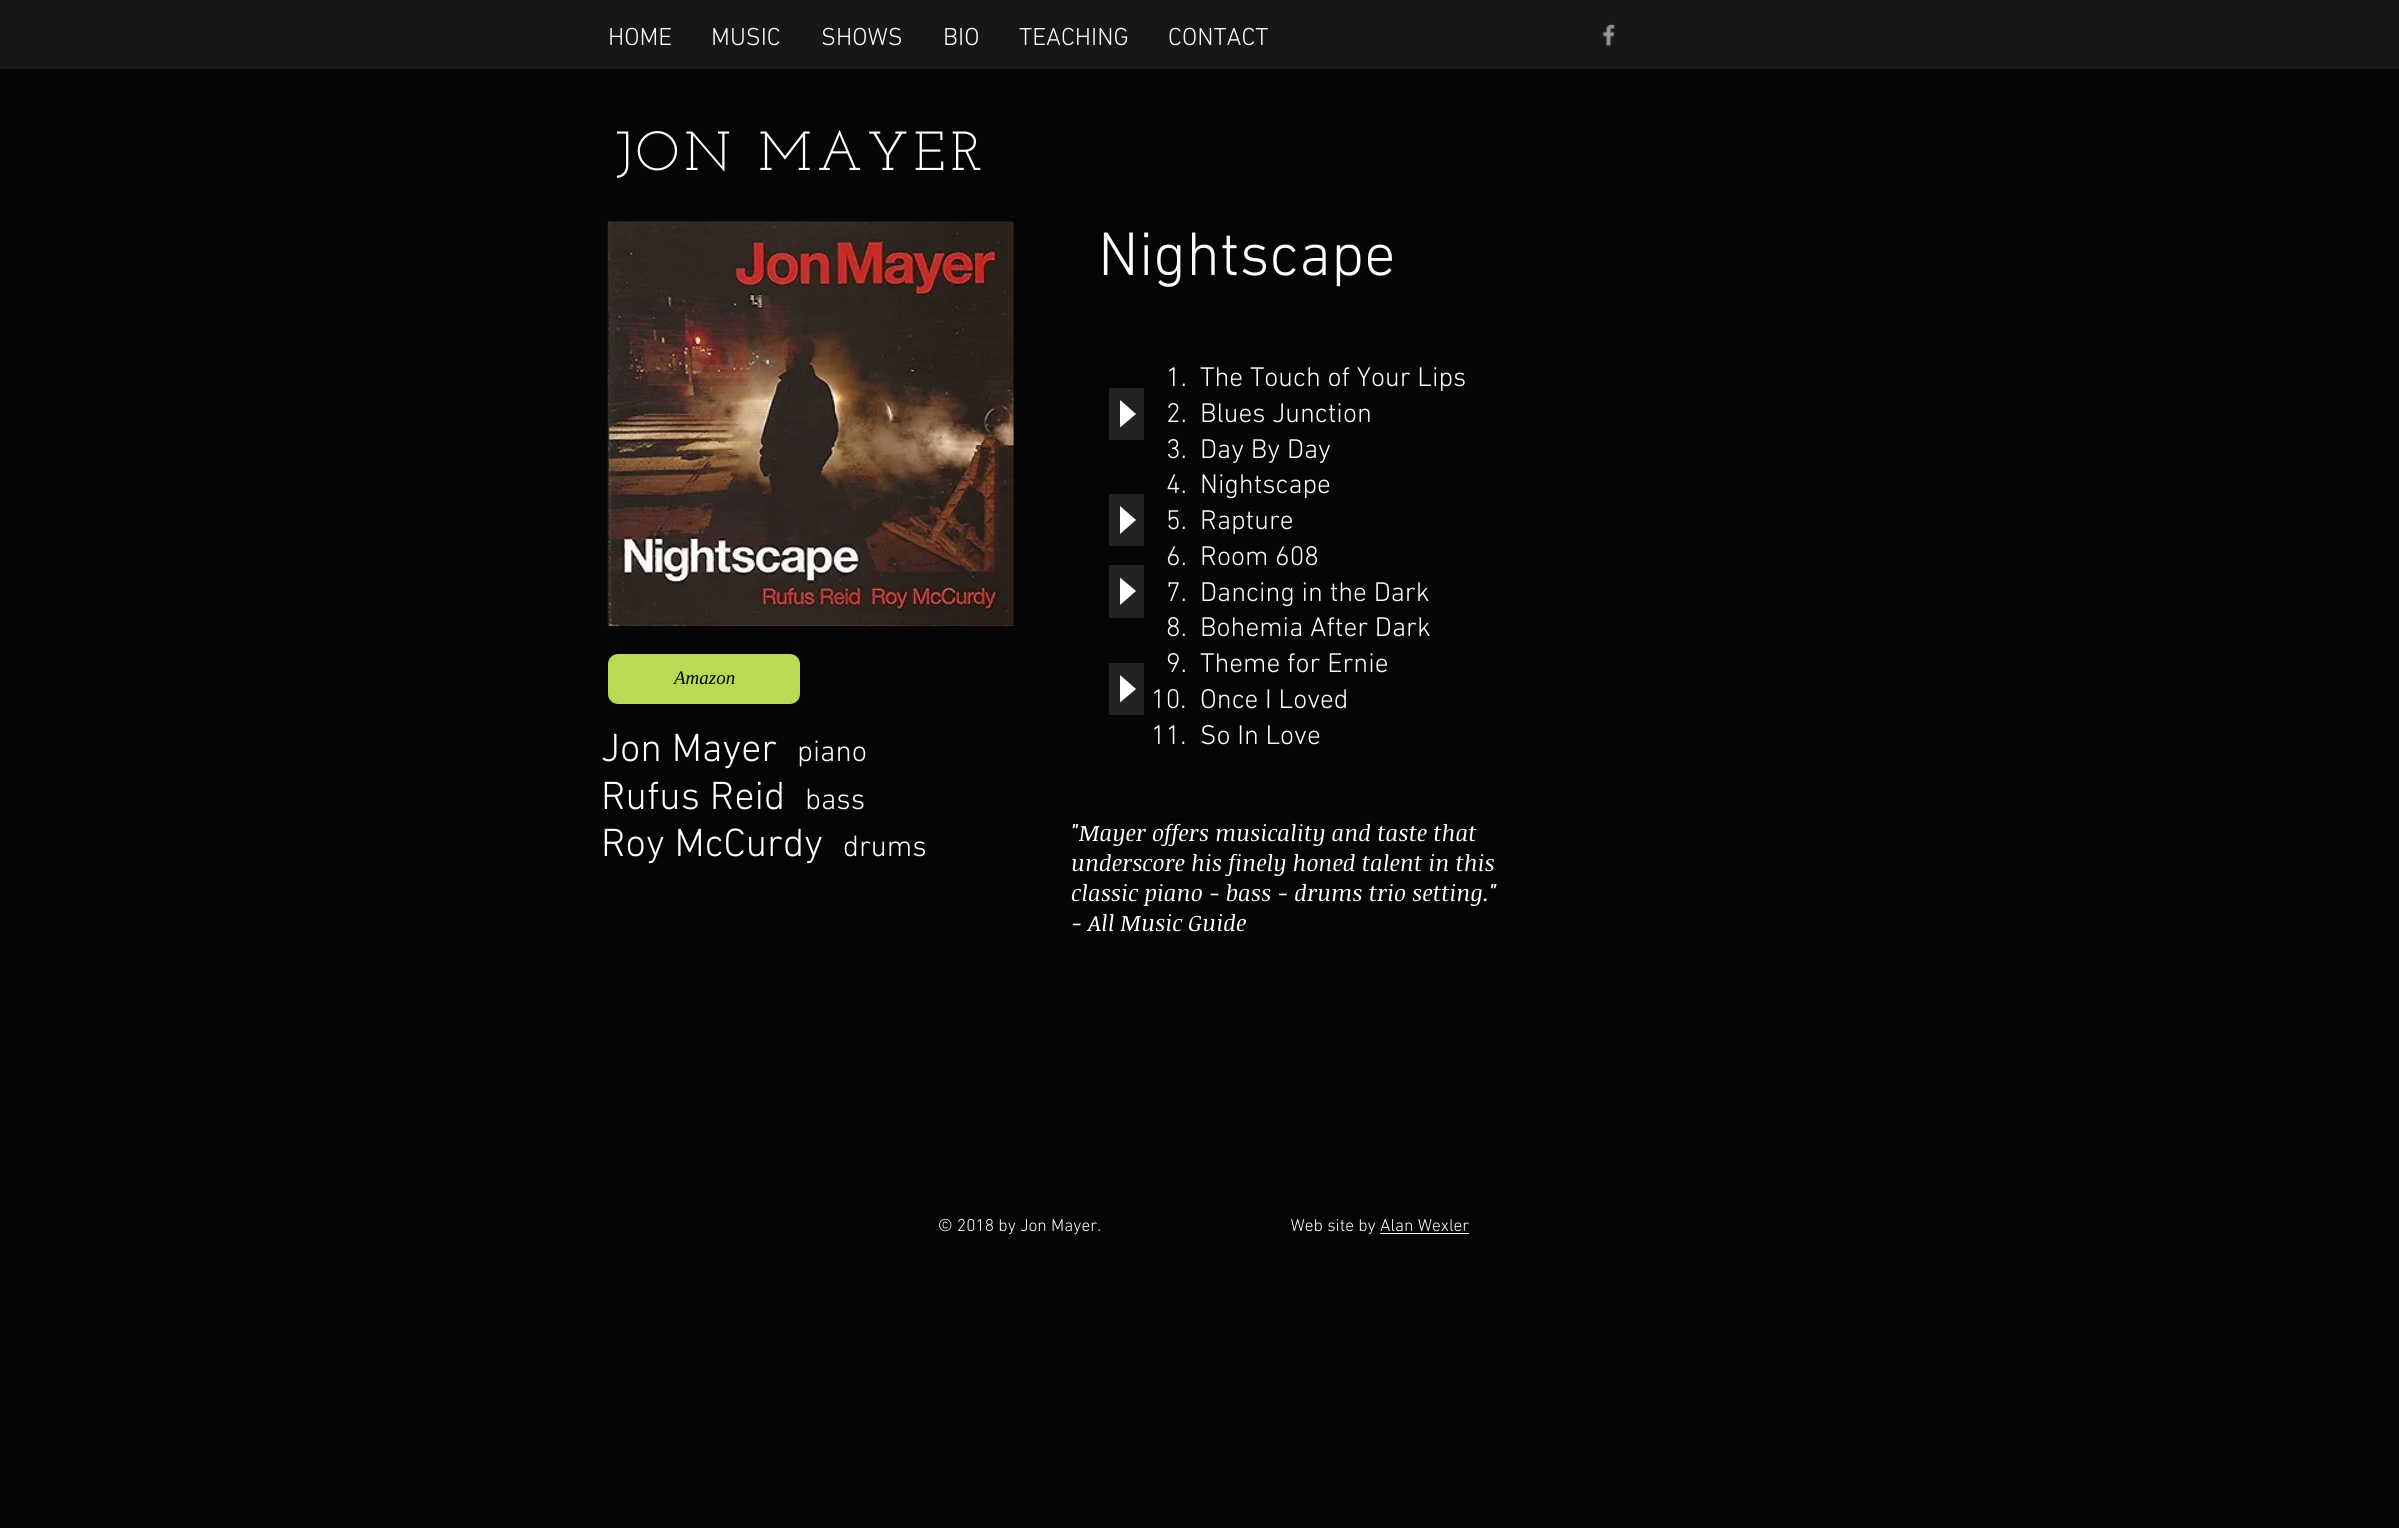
import math
import cairocffi as cairo

surface = cairo.ImageSurface(cairo.FORMAT_RGB24, 2399, 1528)
cr = cairo.Context(surface)
options = cairo.FontOptions()
options.set_hint_metrics(cairo.HINT_METRICS_OFF)
options.set_hint_style(cairo.HINT_STYLE_NONE)
cr.set_font_options(options)
cr.set_miter_limit(4)


def use_color(code):
    cr.set_source_rgb(*(v / 255 for v in bytes.fromhex(code[-6:])))


def spaced_text(x, y, s, letter, word):
    cr.move_to(x, y)
    for ch in s:
        cr.show_text(ch)
        cr.rel_move_to(letter + word * (ch == ' '), 0)


def round_rect(x, y, w, h, r):
    cr.new_sub_path()
    for i, (u, v) in enumerate([(x + w - r, y + h - r), (x + r, y + h - r), (x + r, y + r), (x + w - r, y + r)]):
        cr.arc(u, v, r, i * math.pi / 2, (i + 1) * math.pi / 2)
    cr.close_path()


def picture(path, x, y, w, h):
    cr.save()
    cr.set_source_surface(cairo.ImageSurface.create_from_png(path), x, y)
    cr.rectangle(x, y, w, h)
    cr.fill()
    cr.restore()


use_color("#050505")
cr.paint()
use_color("#171717")
cr.rectangle(0, 0, 2399, 69)
cr.fill()
cr.select_font_face("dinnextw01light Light")
cr.set_font_size(25)
use_color("#ffffff")
cr.move_to(608, 45)
cr.show_text("HOME")
cr.move_to(711, 45)
cr.show_text("MUSIC")
cr.move_to(821, 45)
cr.show_text("SHOWS")
cr.move_to(943, 45)
cr.show_text("BIO")
cr.move_to(1019, 45)
cr.show_text("TEACHING")
cr.move_to(1168, 45)
cr.show_text("CONTACT")
picture("img1.png", 1602, 23, 14, 24)
cr.select_font_face("Josefin Slab")
cr.set_font_size(55)
spaced_text(615, 170, "JON MAYER", 5.5, 0)
picture("img2.png", 607, 221, 407, 406)
cr.select_font_face("dinnextw01light Light")
cr.set_font_size(62.5)
cr.move_to(1098, 275)
cr.show_text("Nightscape")
use_color("#232323")
cr.rectangle(1109, 388, 35, 52)
cr.fill()
use_color("#ffffff")
cr.new_path()
cr.move_to(1120, 427.5)
cr.line_to(1120, 400)
cr.line_to(1136, 414)
cr.close_path()
cr.fill()
cr.set_font_size(27.5)
cr.move_to(1166, 386)
cr.show_text("1.")
cr.move_to(1200, 386)
cr.show_text("The Touch of Your Lips")
cr.move_to(1166, 422)
cr.show_text("2.")
cr.move_to(1200, 422)
cr.show_text("Blues Junction")
cr.move_to(1166, 458)
cr.show_text("3.")
cr.move_to(1200, 458)
cr.show_text("Day By Day")
cr.move_to(1166, 493)
cr.show_text("4.")
cr.move_to(1200, 493)
cr.show_text("Nightscape")
cr.move_to(1166, 529)
cr.show_text("5.")
cr.move_to(1200, 529)
cr.show_text("Rapture")
cr.move_to(1166, 565)
cr.show_text("6.")
cr.move_to(1200, 565)
cr.show_text("Room 608")
cr.move_to(1166, 601)
cr.show_text("7.")
cr.move_to(1200, 601)
cr.show_text("Dancing in the Dark")
cr.move_to(1166, 636)
cr.show_text("8.")
cr.move_to(1200, 636)
cr.show_text("Bohemia After Dark")
cr.move_to(1166, 672)
cr.show_text("9.")
cr.move_to(1200, 672)
cr.show_text("Theme for Ernie")
cr.move_to(1151, 708)
cr.show_text("10.")
cr.move_to(1200, 708)
cr.show_text("Once I Loved")
cr.move_to(1151, 744)
cr.show_text("11.")
cr.move_to(1200, 744)
cr.show_text("So In Love")
use_color("#232323")
cr.rectangle(1109, 494, 35, 52)
cr.fill()
use_color("#ffffff")
cr.new_path()
cr.move_to(1120, 534)
cr.line_to(1120, 506)
cr.line_to(1136, 520)
cr.close_path()
cr.fill()
use_color("#232323")
cr.rectangle(1109, 565, 35, 53)
cr.fill()
use_color("#ffffff")
cr.new_path()
cr.move_to(1120, 605)
cr.line_to(1120, 577.5)
cr.line_to(1136, 591)
cr.close_path()
cr.fill()
use_color("#bada55")
round_rect(608, 654, 192, 50, 10)
cr.fill()
cr.select_font_face("Liberation Serif", cairo.FONT_SLANT_ITALIC)
cr.set_font_size(19)
use_color("#000000")
cr.move_to(674, 684)
cr.show_text("Amazon")
use_color("#232323")
cr.rectangle(1109, 663, 35, 52)
cr.fill()
use_color("#ffffff")
cr.new_path()
cr.move_to(1120, 702.5)
cr.line_to(1120, 675)
cr.line_to(1136, 689)
cr.close_path()
cr.fill()
cr.select_font_face("dinnextw01light Light")
cr.set_font_size(40)
cr.move_to(601, 761)
cr.show_text("Jon Mayer")
cr.set_font_size(30)
cr.move_to(797, 761)
cr.show_text("piano")
cr.set_font_size(40)
cr.move_to(601, 809)
cr.show_text("Rufus Reid")
cr.set_font_size(30)
cr.move_to(805, 809)
cr.show_text("bass")
cr.set_font_size(40)
cr.move_to(601, 856)
cr.show_text("Roy McCurdy")
cr.set_font_size(30)
cr.move_to(843, 856)
cr.show_text("drums")
cr.select_font_face("Noticia Text", cairo.FONT_SLANT_ITALIC)
cr.set_font_size(22.5)
cr.move_to(1071, 841)
cr.show_text("\"Mayer offers musicality and taste that")
cr.move_to(1071, 871)
cr.show_text("underscore his finely honed talent in this")
cr.move_to(1071, 901)
cr.show_text("classic piano - bass - drums trio setting.\"")
cr.move_to(1071, 931)
cr.show_text("- All Music Guide")
cr.select_font_face("dinnextw01light Light")
cr.set_font_size(17.5)
cr.move_to(938, 1231)
cr.show_text("© 2018 by Jon Mayer.                                            Web site by Alan Wexler")
cr.rectangle(1380, 1233, 89, 1)
cr.fill()
surface.write_to_png("result.png")
